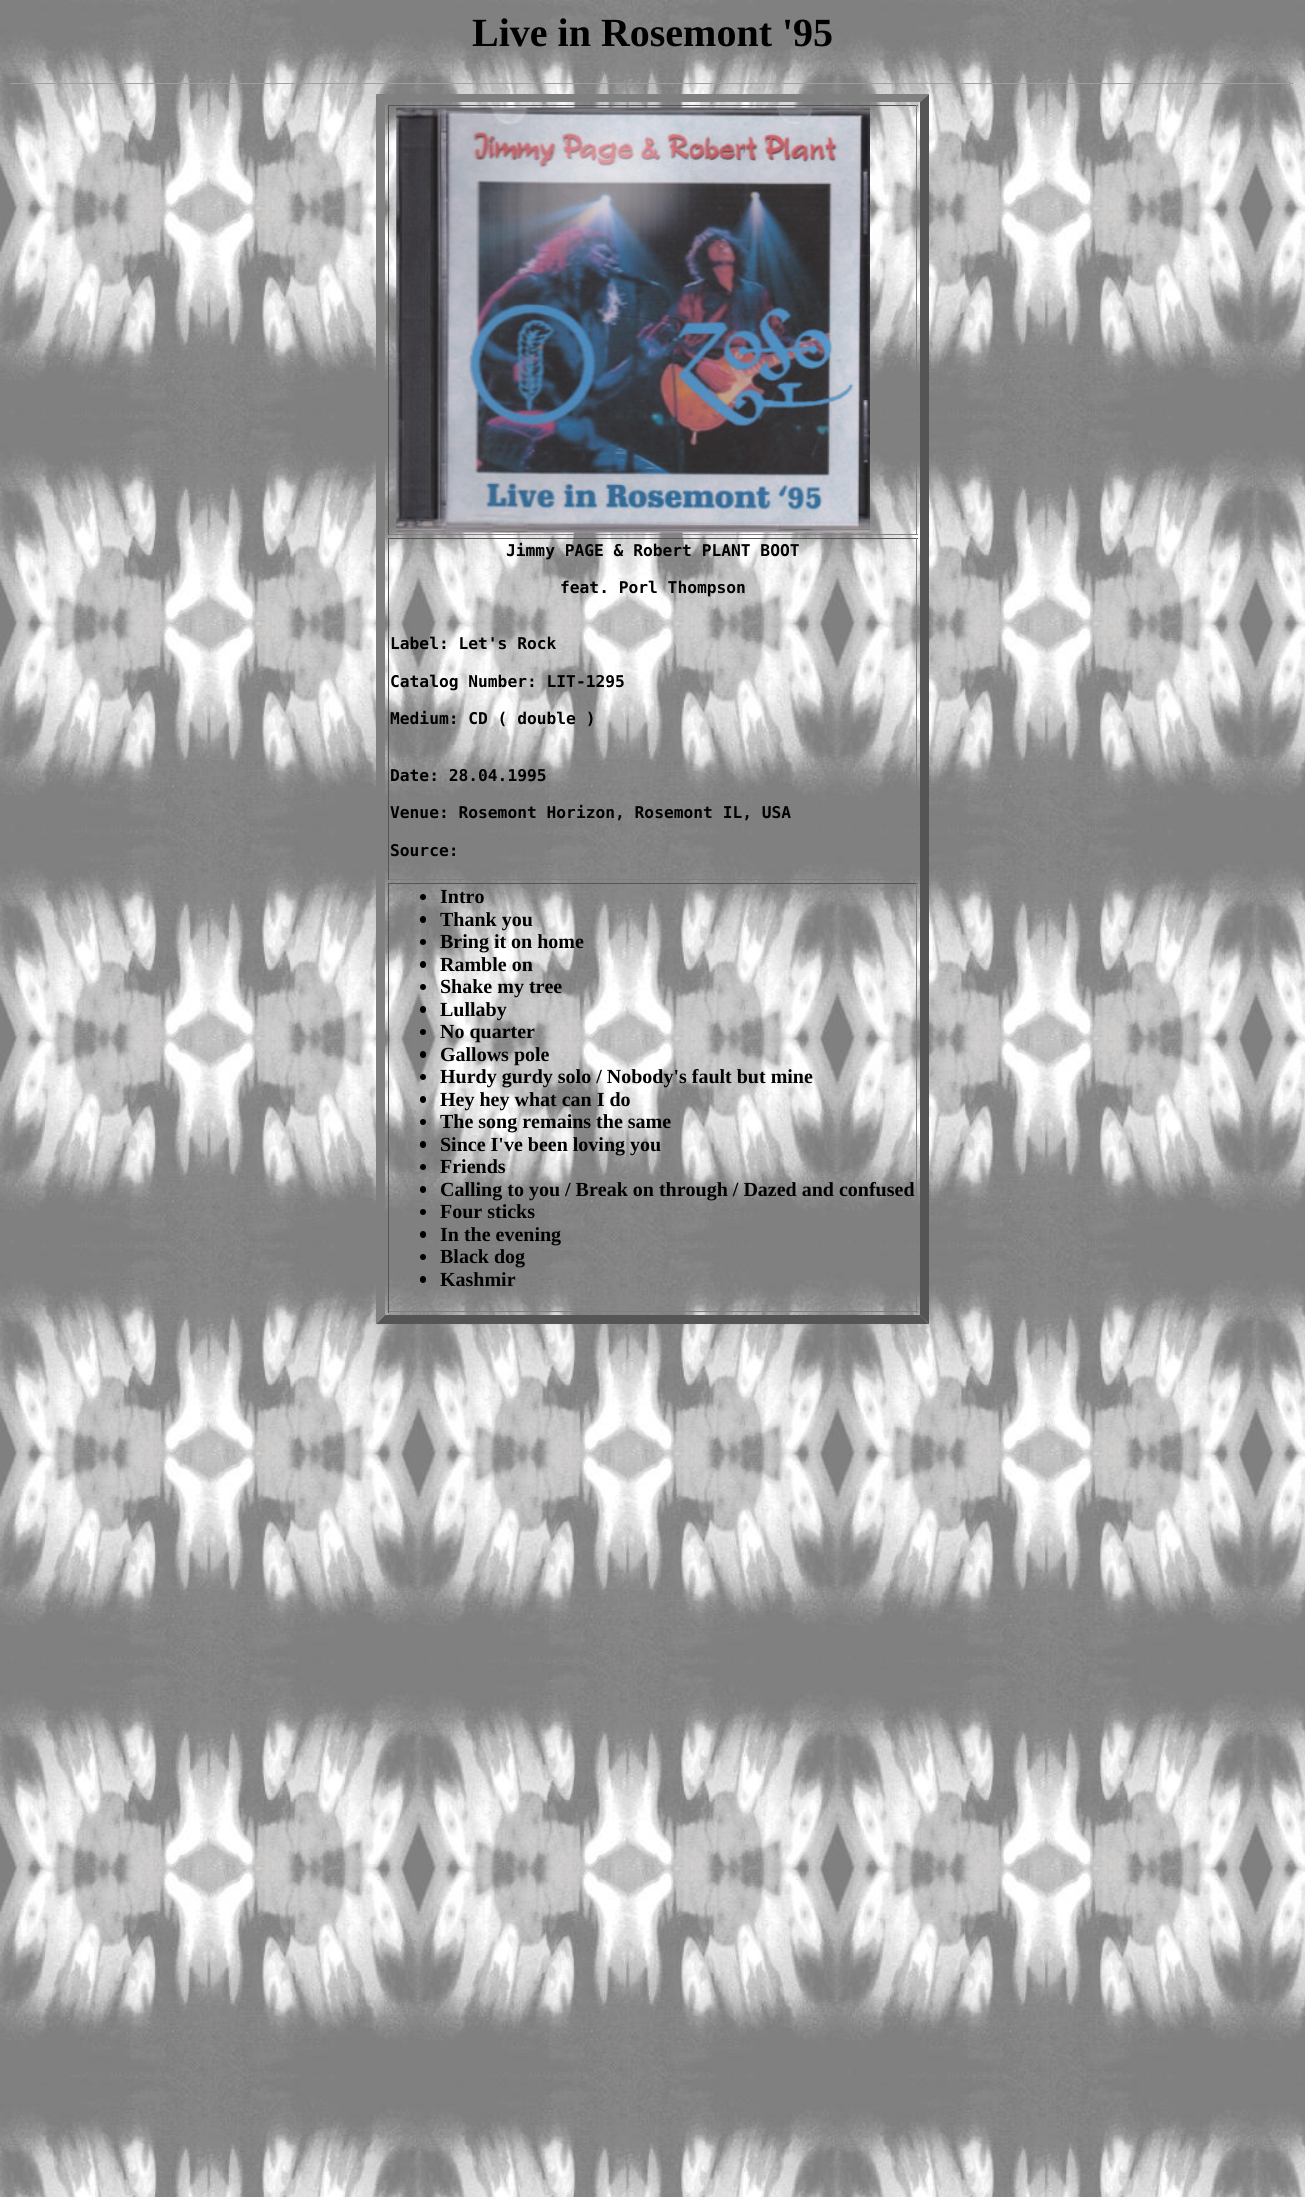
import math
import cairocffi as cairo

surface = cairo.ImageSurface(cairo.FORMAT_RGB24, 1305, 2197)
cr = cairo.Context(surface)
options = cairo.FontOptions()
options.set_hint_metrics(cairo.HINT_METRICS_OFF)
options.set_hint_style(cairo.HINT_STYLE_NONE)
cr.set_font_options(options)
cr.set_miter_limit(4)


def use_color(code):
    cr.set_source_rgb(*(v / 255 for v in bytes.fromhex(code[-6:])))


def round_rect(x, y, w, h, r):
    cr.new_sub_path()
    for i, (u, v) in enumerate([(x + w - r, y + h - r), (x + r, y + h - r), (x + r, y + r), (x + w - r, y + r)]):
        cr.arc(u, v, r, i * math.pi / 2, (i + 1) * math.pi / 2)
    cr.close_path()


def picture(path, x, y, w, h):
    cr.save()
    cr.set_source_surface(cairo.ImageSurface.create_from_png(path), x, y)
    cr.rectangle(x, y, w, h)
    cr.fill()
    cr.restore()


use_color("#ffffff")
cr.paint()
picture("img1.png", 0, 0, 1305, 2197)
cr.select_font_face("Liberation Serif", cairo.FONT_SLANT_NORMAL, cairo.FONT_WEIGHT_BOLD)
cr.set_font_size(40)
use_color("#000000")
cr.move_to(472, 46)
cr.show_text("Live in Rosemont '95")
use_color("#9f9f9f")
cr.rectangle(10, 83, 1285, 1)
cr.fill()
use_color("#eeeeee")
cr.rectangle(1294, 83, 1, 1)
cr.fill()
use_color("#808080")
cr.new_path()
cr.move_to(376, 94)
cr.line_to(929, 94)
cr.line_to(920, 102)
cr.line_to(385, 102)
cr.close_path()
cr.fill()
use_color("#555555")
cr.new_path()
cr.move_to(929, 94)
cr.line_to(929, 1324)
cr.line_to(920, 1315)
cr.line_to(920, 102)
cr.close_path()
cr.fill()
cr.new_path()
cr.move_to(929, 1324)
cr.line_to(376, 1324)
cr.line_to(385, 1315)
cr.line_to(920, 1315)
cr.close_path()
cr.fill()
use_color("#808080")
cr.new_path()
cr.move_to(376, 1324)
cr.line_to(376, 94)
cr.line_to(385, 102)
cr.line_to(385, 1315)
cr.close_path()
cr.fill()
use_color("#555555")
cr.rectangle(388, 105, 530, 1)
cr.fill()
use_color("#808080")
cr.rectangle(916, 105, 1, 430)
cr.fill()
cr.rectangle(388, 534, 530, 1)
cr.fill()
use_color("#555555")
cr.rectangle(388, 105, 1, 430)
cr.fill()
picture("img2.png", 396, 107, 474, 426)
cr.rectangle(388, 538, 530, 1)
cr.fill()
use_color("#808080")
cr.rectangle(916, 538, 1, 342)
cr.fill()
cr.rectangle(388, 879, 530, 1)
cr.fill()
use_color("#555555")
cr.rectangle(388, 538, 1, 342)
cr.fill()
cr.select_font_face("DejaVu Sans Mono", cairo.FONT_SLANT_NORMAL, cairo.FONT_WEIGHT_BOLD)
cr.set_font_size(16.25)
use_color("#000000")
cr.move_to(506, 556)
cr.show_text("Jimmy PAGE & Robert PLANT BOOT")
cr.move_to(560, 593)
cr.show_text("feat. Porl Thompson")
cr.move_to(390, 649)
cr.show_text("Label: Let's Rock")
cr.move_to(390, 687)
cr.show_text("Catalog Number: LIT-1295")
cr.move_to(390, 724)
cr.show_text("Medium: CD ( double )")
cr.move_to(390, 781)
cr.show_text("Date: 28.04.1995")
cr.move_to(390, 818)
cr.show_text("Venue: Rosemont Horizon, Rosemont IL, USA")
cr.move_to(390, 856)
cr.show_text("Source:")
use_color("#555555")
cr.rectangle(388, 883, 530, 1)
cr.fill()
use_color("#808080")
cr.rectangle(916, 883, 1, 430)
cr.fill()
cr.rectangle(388, 1311, 530, 1)
cr.fill()
use_color("#555555")
cr.rectangle(388, 883, 1, 430)
cr.fill()
use_color("#000000")
cr.arc(423, 897, 3, 0, 2 * math.pi)
cr.fill()
cr.select_font_face("Liberation Serif", cairo.FONT_SLANT_NORMAL, cairo.FONT_WEIGHT_BOLD)
cr.set_font_size(20)
cr.move_to(440, 903)
cr.show_text("Intro")
round_rect(420, 916, 6, 7, 3)
cr.fill()
cr.move_to(440, 926)
cr.show_text("Thank you")
cr.new_path()
cr.arc(423, 942, 3, 0, 2 * math.pi)
cr.fill()
cr.move_to(440, 948)
cr.show_text("Bring it on home")
round_rect(420, 961, 6, 7, 3)
cr.fill()
cr.move_to(440, 971)
cr.show_text("Ramble on")
cr.new_path()
cr.arc(423, 987, 3, 0, 2 * math.pi)
cr.fill()
cr.move_to(440, 993)
cr.show_text("Shake my tree")
round_rect(420, 1006, 6, 7, 3)
cr.fill()
cr.move_to(440, 1016)
cr.show_text("Lullaby")
cr.new_path()
cr.arc(423, 1032, 3, 0, 2 * math.pi)
cr.fill()
cr.move_to(440, 1038)
cr.show_text("No quarter")
round_rect(420, 1051, 6, 7, 3)
cr.fill()
cr.move_to(440, 1061)
cr.show_text("Gallows pole")
cr.new_path()
cr.arc(423, 1077, 3, 0, 2 * math.pi)
cr.fill()
cr.move_to(440, 1083)
cr.show_text("Hurdy gurdy solo / Nobody's fault but mine")
round_rect(420, 1096, 6, 7, 3)
cr.fill()
cr.move_to(440, 1106)
cr.show_text("Hey hey what can I do")
cr.new_path()
cr.arc(423, 1122, 3, 0, 2 * math.pi)
cr.fill()
cr.move_to(440, 1128)
cr.show_text("The song remains the same")
round_rect(420, 1141, 6, 7, 3)
cr.fill()
cr.move_to(440, 1151)
cr.show_text("Since I've been loving you")
cr.new_path()
cr.arc(423, 1167, 3, 0, 2 * math.pi)
cr.fill()
cr.move_to(440, 1173)
cr.show_text("Friends")
round_rect(420, 1186, 6, 7, 3)
cr.fill()
cr.move_to(440, 1196)
cr.show_text("Calling to you / Break on through / Dazed and confused")
cr.new_path()
cr.arc(423, 1212, 3, 0, 2 * math.pi)
cr.fill()
cr.move_to(440, 1218)
cr.show_text("Four sticks")
round_rect(420, 1231, 6, 7, 3)
cr.fill()
cr.move_to(440, 1241)
cr.show_text("In the evening")
cr.new_path()
cr.arc(423, 1257, 3, 0, 2 * math.pi)
cr.fill()
cr.move_to(440, 1263)
cr.show_text("Black dog")
round_rect(420, 1276, 6, 7, 3)
cr.fill()
cr.move_to(440, 1286)
cr.show_text("Kashmir")
surface.write_to_png("result.png")
